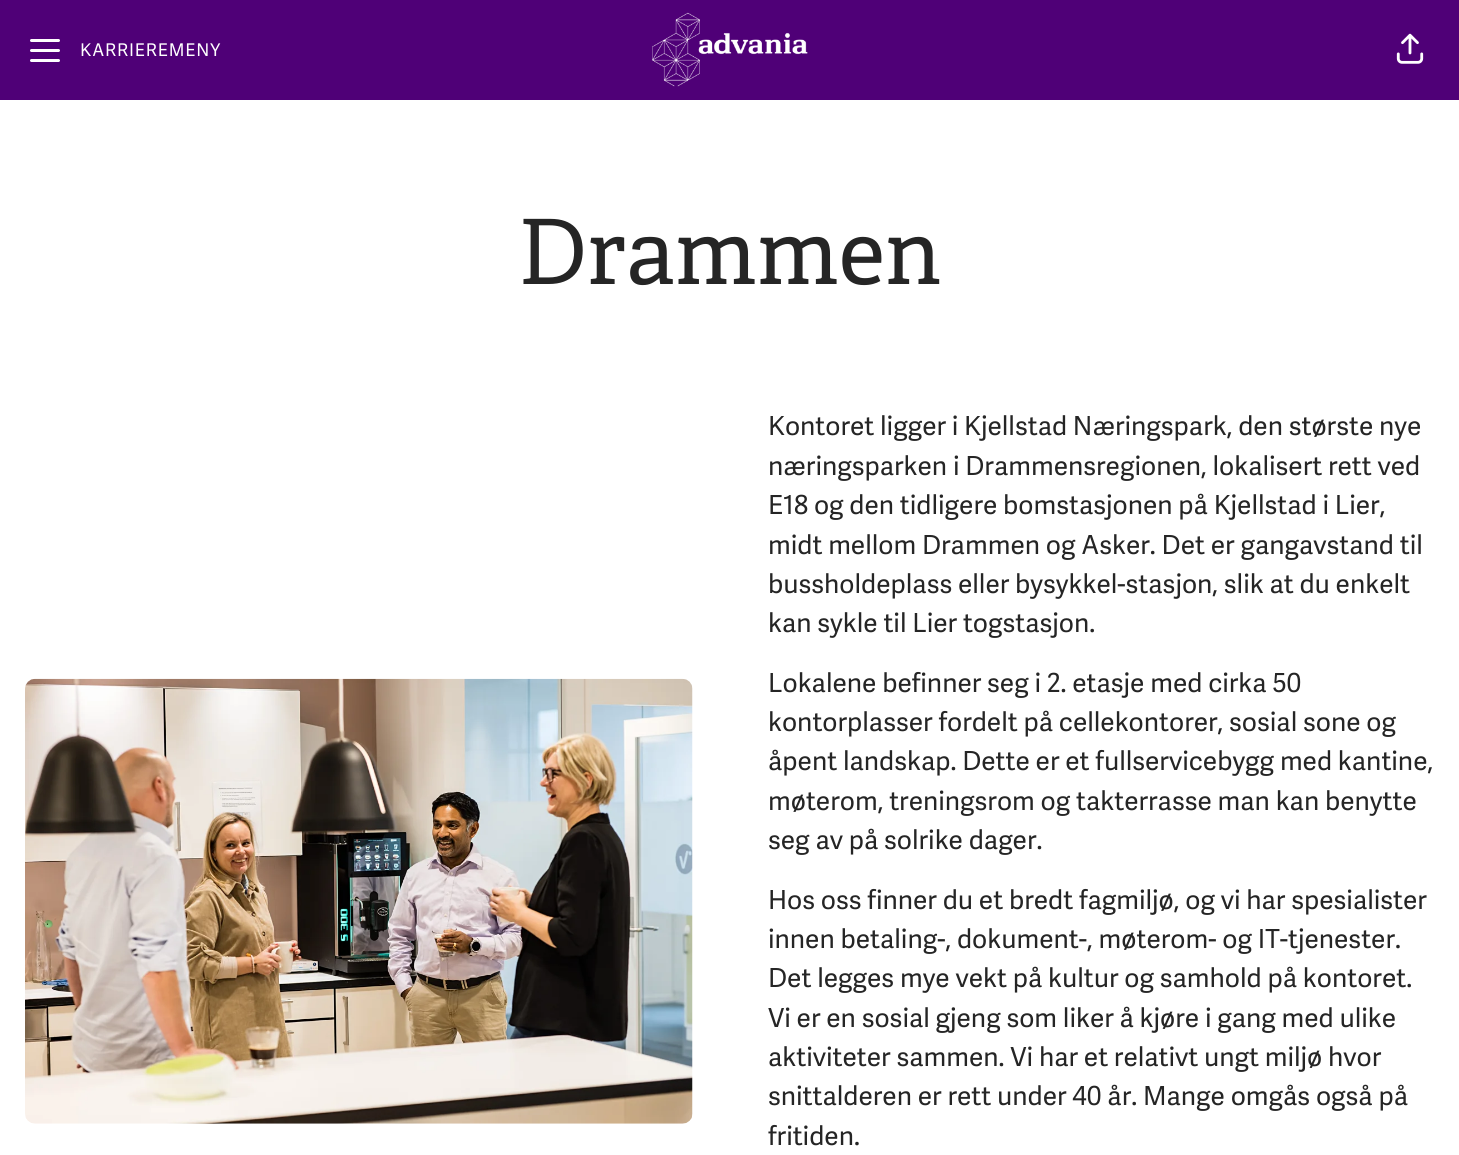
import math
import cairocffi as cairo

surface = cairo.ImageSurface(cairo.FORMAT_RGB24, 1459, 1155)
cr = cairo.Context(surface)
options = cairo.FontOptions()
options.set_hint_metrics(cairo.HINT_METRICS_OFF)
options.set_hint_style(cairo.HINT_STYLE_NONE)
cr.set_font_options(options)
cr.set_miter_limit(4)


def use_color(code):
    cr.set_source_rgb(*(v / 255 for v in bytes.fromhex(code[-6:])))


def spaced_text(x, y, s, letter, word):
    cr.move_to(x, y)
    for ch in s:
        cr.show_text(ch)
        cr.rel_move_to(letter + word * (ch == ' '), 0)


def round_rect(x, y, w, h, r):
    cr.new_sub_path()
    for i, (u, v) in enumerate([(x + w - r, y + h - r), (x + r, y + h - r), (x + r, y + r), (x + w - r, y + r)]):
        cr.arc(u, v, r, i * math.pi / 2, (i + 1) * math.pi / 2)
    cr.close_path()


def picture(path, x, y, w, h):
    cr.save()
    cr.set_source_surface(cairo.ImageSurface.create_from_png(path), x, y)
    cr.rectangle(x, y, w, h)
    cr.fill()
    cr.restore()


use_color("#ffffff")
cr.paint()
use_color("#4f0077")
cr.rectangle(0, 0, 1459, 100)
cr.fill()
use_color("#ffffff")
round_rect(30, 39, 30, 3, 1.5)
cr.fill()
round_rect(30, 49, 30, 3, 1.5)
cr.fill()
round_rect(30, 59, 30, 3, 1.5)
cr.fill()
cr.select_font_face("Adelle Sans")
cr.set_font_size(17.5)
spaced_text(80, 56, "KARRIEREMENY", 0.9, 0)
picture("img1.png", 652, 12, 156, 75)
picture("img2.png", 1396, 33, 28, 31)
cr.select_font_face("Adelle")
cr.set_font_size(90)
use_color("#252525")
cr.move_to(518, 284)
cr.show_text("Drammen")
picture("img3.png", 25, 678, 668, 446)
cr.select_font_face("Adelle Sans")
cr.set_font_size(26.25)
cr.move_to(768, 435)
cr.show_text("Kontoret ligger i Kjellstad Næringspark, den største nye")
cr.move_to(768, 475)
cr.show_text("næringsparken i Drammensregionen, lokalisert rett ved")
cr.move_to(768, 514)
cr.show_text("E18 og den tidligere bomstasjonen på Kjellstad i Lier,")
cr.move_to(768, 554)
cr.show_text("midt mellom Drammen og Asker. Det er gangavstand til")
cr.move_to(768, 593)
cr.show_text("bussholdeplass eller bysykkel-stasjon, slik at du enkelt")
cr.move_to(768, 632)
cr.show_text("kan sykle til Lier togstasjon.")
cr.move_to(768, 692)
cr.show_text("Lokalene befinner seg i 2. etasje med cirka 50")
cr.move_to(768, 731)
cr.show_text("kontorplasser fordelt på cellekontorer, sosial sone og")
cr.move_to(768, 770)
cr.show_text("åpent landskap. Dette er et fullservicebygg med kantine,")
cr.move_to(768, 810)
cr.show_text("møterom, treningsrom og takterrasse man kan benytte")
cr.move_to(768, 849)
cr.show_text("seg av på solrike dager.")
cr.move_to(768, 909)
cr.show_text("Hos oss finner du et bredt fagmiljø, og vi har spesialister")
cr.move_to(768, 948)
cr.show_text("innen betaling-, dokument-, møterom- og IT-tjenester.")
cr.move_to(768, 987)
cr.show_text("Det legges mye vekt på kultur og samhold på kontoret.")
cr.move_to(768, 1027)
cr.show_text("Vi er en sosial gjeng som liker å kjøre i gang med ulike")
cr.move_to(768, 1066)
cr.show_text("aktiviteter sammen. Vi har et relativt ungt miljø hvor")
cr.move_to(768, 1105)
cr.show_text("snittalderen er rett under 40 år. Mange omgås også på")
cr.move_to(768, 1145)
cr.show_text("fritiden.")
surface.write_to_png("result.png")
